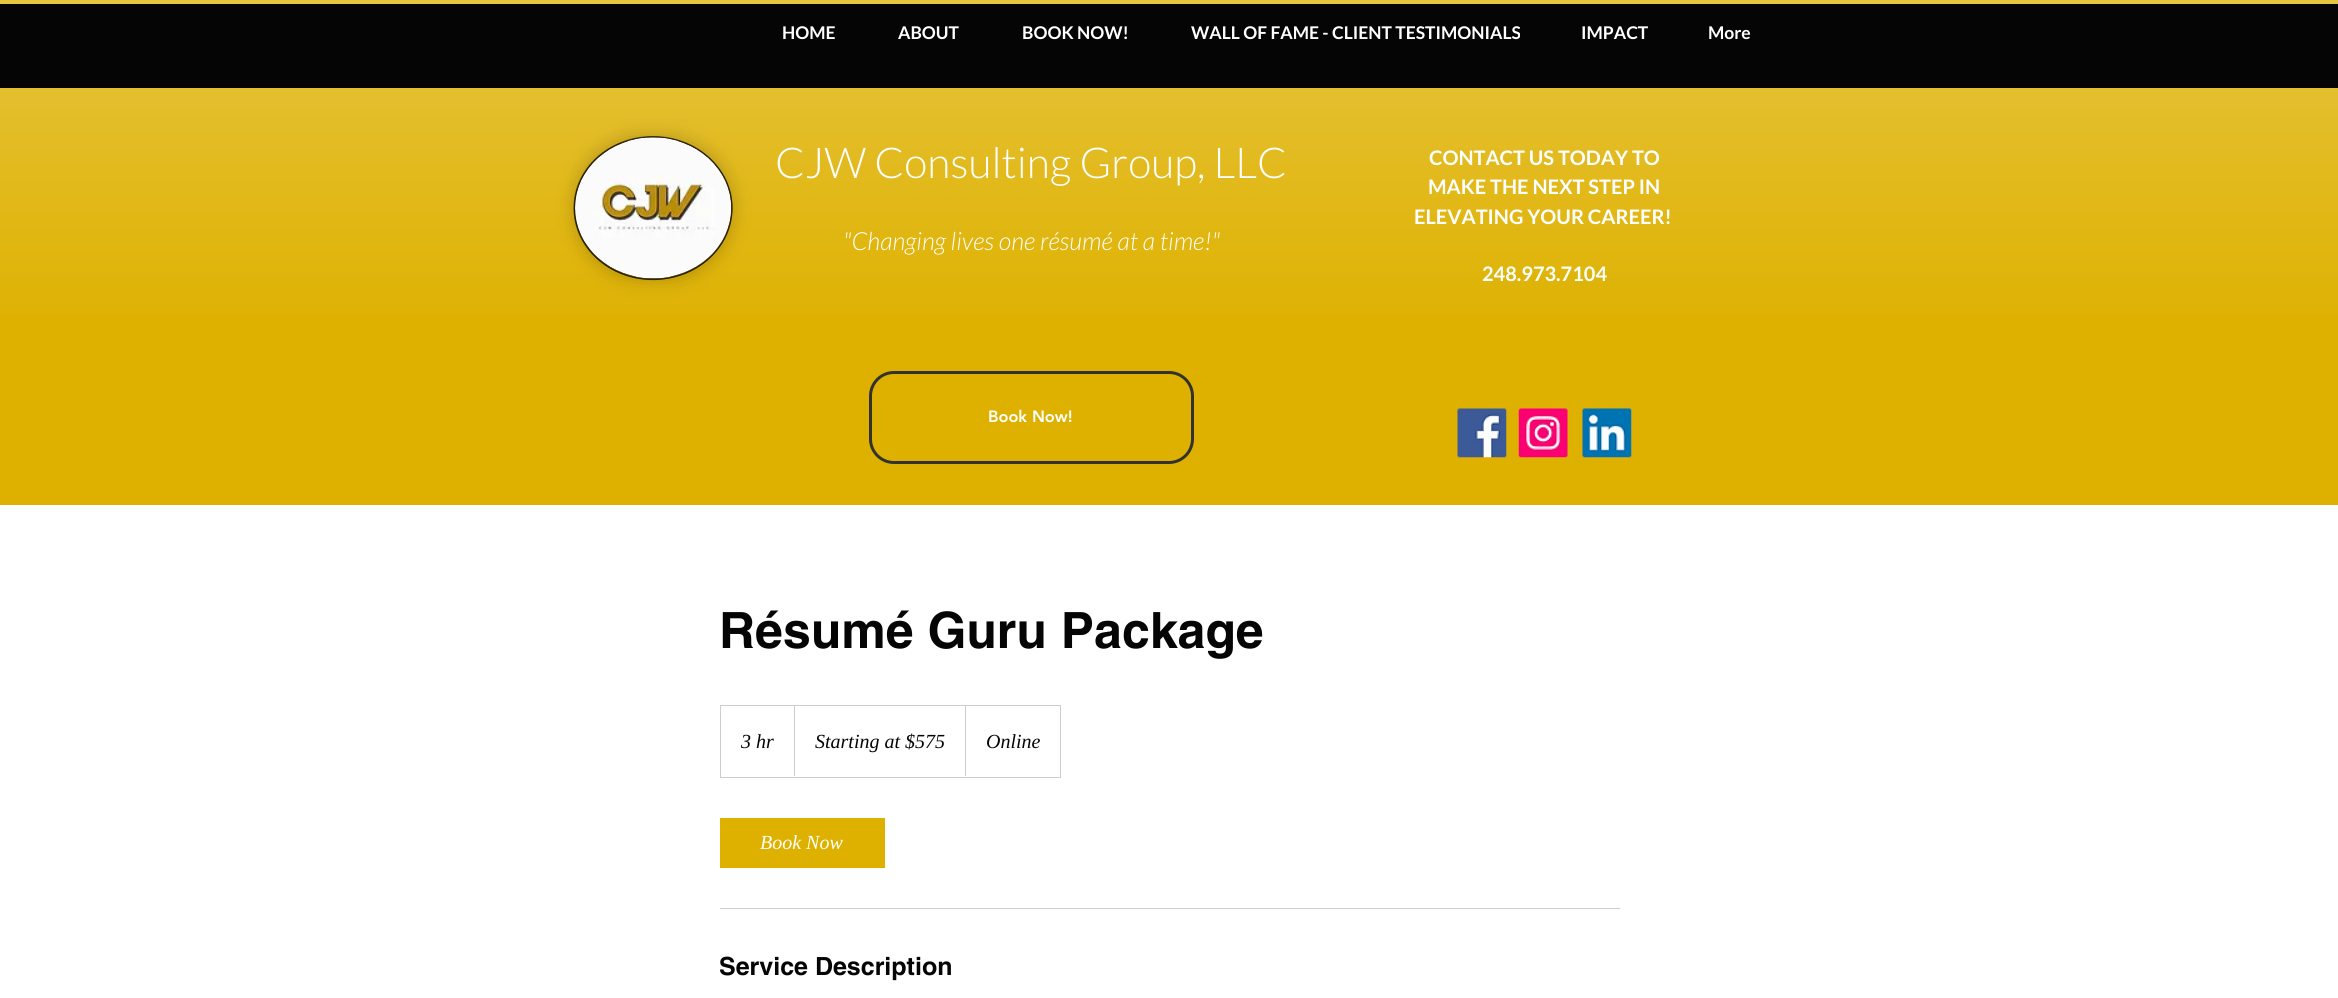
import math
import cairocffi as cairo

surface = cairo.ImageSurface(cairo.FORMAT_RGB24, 2338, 998)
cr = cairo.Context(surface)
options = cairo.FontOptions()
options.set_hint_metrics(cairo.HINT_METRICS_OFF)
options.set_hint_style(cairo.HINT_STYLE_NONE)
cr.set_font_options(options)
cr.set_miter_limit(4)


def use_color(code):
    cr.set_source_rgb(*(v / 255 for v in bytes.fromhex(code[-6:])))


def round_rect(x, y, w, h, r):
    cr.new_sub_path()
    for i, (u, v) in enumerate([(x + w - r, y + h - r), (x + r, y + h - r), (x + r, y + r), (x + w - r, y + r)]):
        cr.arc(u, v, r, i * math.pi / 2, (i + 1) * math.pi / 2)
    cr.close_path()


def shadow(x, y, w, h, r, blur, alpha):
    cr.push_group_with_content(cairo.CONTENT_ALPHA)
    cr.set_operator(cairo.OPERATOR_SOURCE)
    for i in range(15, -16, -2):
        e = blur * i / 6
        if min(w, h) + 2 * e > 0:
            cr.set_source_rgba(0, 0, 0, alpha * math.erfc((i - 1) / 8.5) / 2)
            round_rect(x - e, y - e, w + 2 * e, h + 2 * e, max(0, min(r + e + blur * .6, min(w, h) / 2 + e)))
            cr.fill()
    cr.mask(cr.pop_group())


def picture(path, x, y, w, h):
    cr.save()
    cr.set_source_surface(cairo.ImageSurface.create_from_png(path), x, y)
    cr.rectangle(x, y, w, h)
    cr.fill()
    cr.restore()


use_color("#deb100")
cr.paint()
picture("img1.png", 0, 0, 2338, 313)
use_color("#050505")
cr.rectangle(0, 4, 2338, 84)
cr.fill()
cr.select_font_face("Lato", cairo.FONT_SLANT_NORMAL, cairo.FONT_WEIGHT_BOLD)
cr.set_font_size(17.5)
use_color("#ffffff")
cr.move_to(782, 39)
cr.show_text("HOME")
cr.move_to(898, 39)
cr.show_text("ABOUT")
cr.move_to(1022, 39)
cr.show_text("BOOK NOW!")
cr.move_to(1191, 39)
cr.show_text("WALL OF FAME - CLIENT TESTIMONIALS")
cr.move_to(1581, 39)
cr.show_text("IMPACT")
cr.move_to(1708, 39)
cr.show_text("More")
cr.save()
cr.set_fill_rule(cairo.FILL_RULE_EVEN_ODD)
cr.new_path()
cr.move_to(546, 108)
cr.line_to(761, 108)
cr.line_to(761, 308)
cr.line_to(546, 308)
cr.close_path()
cr.move_to(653, 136)
cr.curve_to(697, 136, 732.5, 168.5, 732.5, 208)
cr.curve_to(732.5, 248, 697, 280, 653, 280)
cr.curve_to(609.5, 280, 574, 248, 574, 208)
cr.curve_to(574, 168.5, 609.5, 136, 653, 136)
cr.close_path()
cr.clip()
use_color("#000000")
shadow(574, 136, 159, 144, 72, 9, 0.2)
cr.restore()
cr.set_source_rgba(0.02, 0.02, 0.02, 0.61)
cr.new_path()
cr.move_to(653, 136)
cr.curve_to(697, 136, 732.5, 168, 732.5, 208)
cr.curve_to(732.5, 248, 697, 280, 653, 280)
cr.curve_to(609, 280, 573.5, 248, 573.5, 208)
cr.curve_to(573.5, 168, 609, 136, 653, 136)
cr.close_path()
cr.fill()
cr.new_path()
cr.move_to(653, 137)
cr.curve_to(696.5, 137, 732, 169, 732, 208)
cr.curve_to(732, 247.5, 696.5, 279.5, 653, 279.5)
cr.curve_to(609.5, 279.5, 574.5, 247.5, 574.5, 208)
cr.curve_to(574.5, 169, 609.5, 137, 653, 137)
cr.close_path()
cr.set_line_width(1.2)
cr.stroke()
picture("img2.png", 575, 137, 156, 142)
cr.select_font_face("Lato Light")
cr.set_font_size(42.5)
use_color("#ffffff")
cr.move_to(775, 178)
cr.show_text("CJW Consulting Group, LLC")
cr.select_font_face("Lato Light", cairo.FONT_SLANT_ITALIC)
cr.set_font_size(25)
cr.move_to(843, 250)
cr.show_text("\"Changing lives one résumé at a time!\"")
cr.select_font_face("Lato", cairo.FONT_SLANT_NORMAL, cairo.FONT_WEIGHT_BOLD)
cr.set_font_size(20)
cr.move_to(1429, 165)
cr.show_text("CONTACT US TODAY TO")
cr.move_to(1428, 194)
cr.show_text("MAKE THE NEXT STEP IN")
cr.move_to(1414, 224)
cr.show_text("ELEVATING YOUR CAREER!")
cr.move_to(1482, 281)
cr.show_text("248.973.7104")
round_rect(870.5, 372.5, 322, 90, 23.5)
use_color("#323232")
cr.set_line_width(3)
cr.stroke()
cr.select_font_face("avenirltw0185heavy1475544 Black")
cr.set_font_size(16.25)
use_color("#ffffff")
cr.move_to(988, 422)
cr.show_text("Book Now!")
picture("img3.png", 1457, 408, 50, 50)
picture("img4.png", 1518, 408, 50, 50)
picture("img5.png", 1582, 408, 50, 50)
cr.rectangle(0, 505, 2338, 493)
cr.fill()
cr.select_font_face("helvetica", cairo.FONT_SLANT_NORMAL, cairo.FONT_WEIGHT_BOLD)
cr.set_font_size(50)
use_color("#050505")
cr.move_to(719, 648)
cr.show_text("Résumé Guru Package")
cr.rectangle(720.5, 705.5, 340, 72)
use_color("#cdcdcd")
cr.set_line_width(1)
cr.stroke()
cr.select_font_face("Liberation Serif", cairo.FONT_SLANT_ITALIC)
cr.set_font_size(20)
use_color("#050505")
cr.move_to(741, 748)
cr.show_text("3 hr")
use_color("#cdcdcd")
cr.new_path()
cr.move_to(794, 776)
cr.line_to(794, 705)
cr.line_to(795, 706)
cr.line_to(795, 776)
cr.close_path()
cr.fill()
use_color("#050505")
cr.move_to(815, 748)
cr.show_text("Starting at $575")
use_color("#cdcdcd")
cr.new_path()
cr.move_to(965, 776)
cr.line_to(965, 705)
cr.line_to(966, 706)
cr.line_to(966, 776)
cr.close_path()
cr.fill()
use_color("#050505")
cr.move_to(986, 748)
cr.show_text("Online")
use_color("#deb100")
cr.rectangle(720, 818, 165, 50)
cr.fill()
use_color("#ffffff")
cr.move_to(760, 849)
cr.show_text("Book Now")
use_color("#cdcdcd")
cr.rectangle(720, 908, 900, 1)
cr.fill()
cr.select_font_face("helvetica", cairo.FONT_SLANT_NORMAL, cairo.FONT_WEIGHT_BOLD)
cr.set_font_size(25)
use_color("#050505")
cr.move_to(719, 975)
cr.show_text("Service Description")
surface.write_to_png("result.png")
